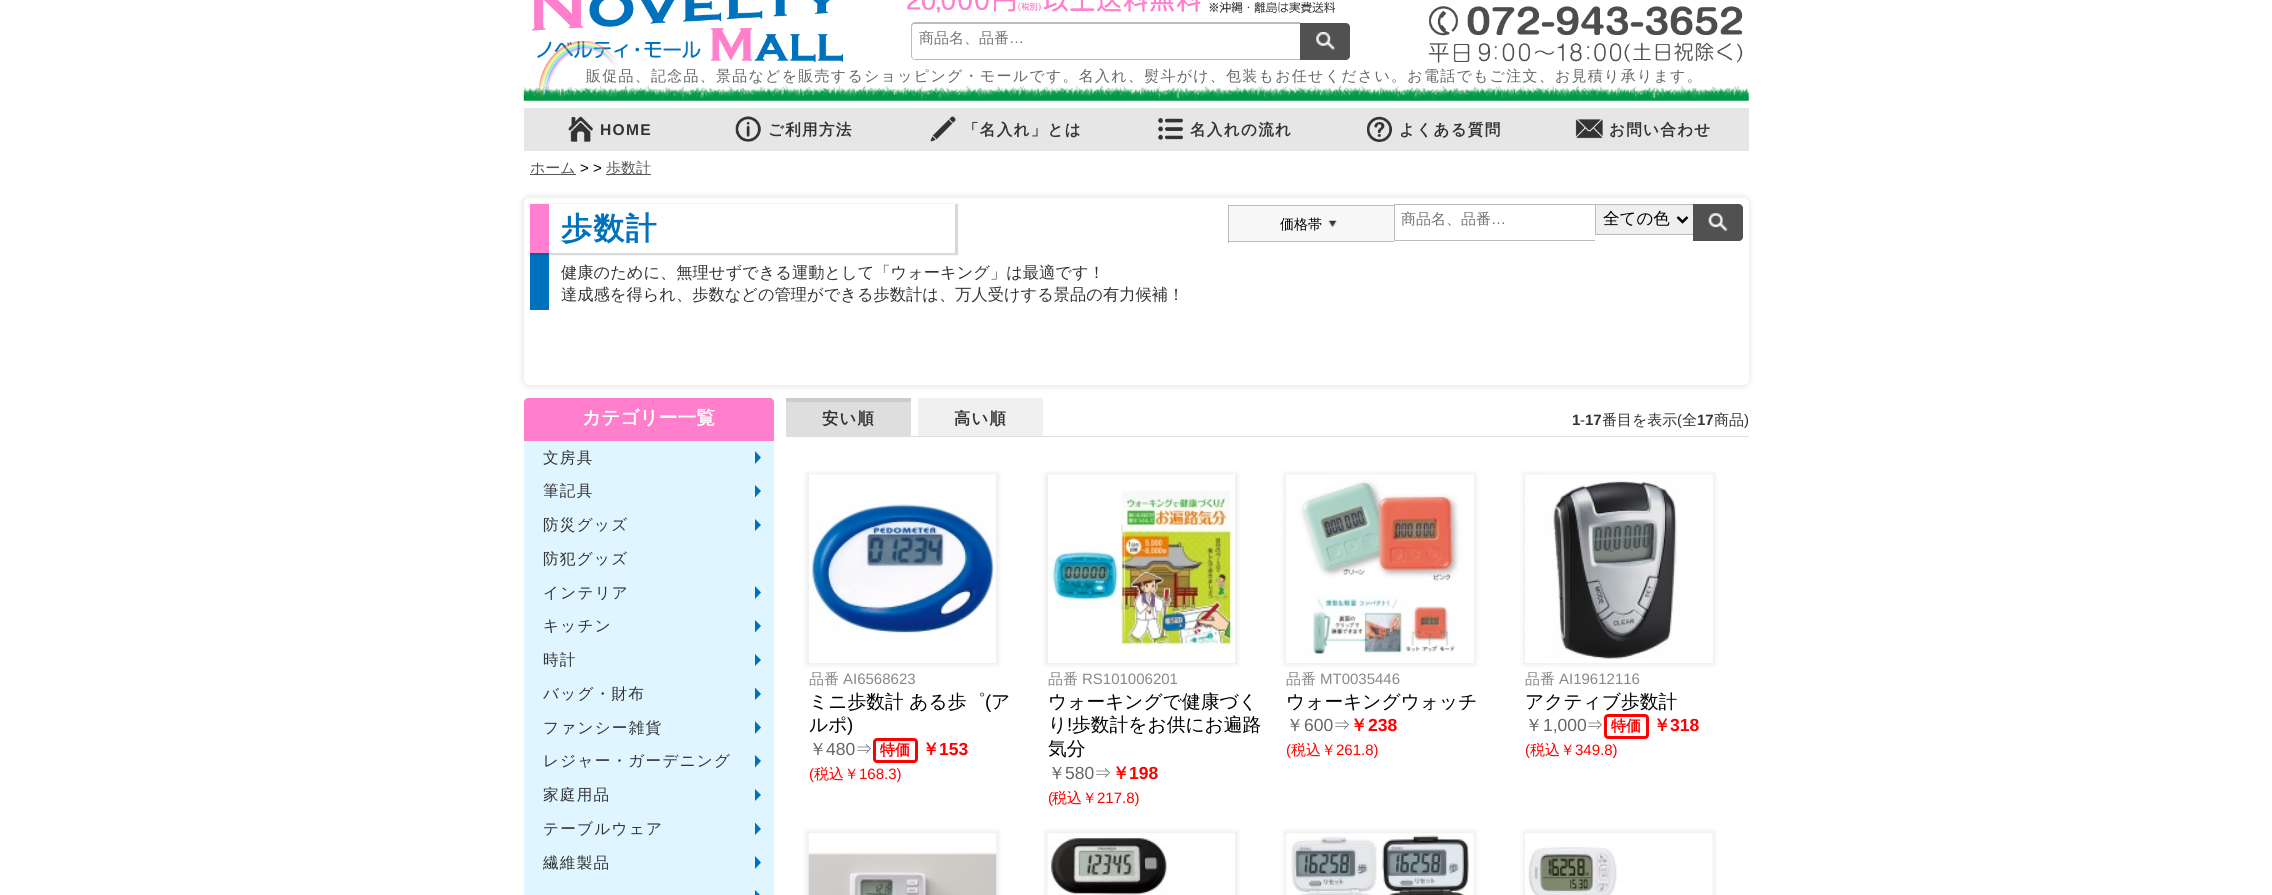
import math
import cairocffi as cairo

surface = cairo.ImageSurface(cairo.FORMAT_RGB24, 2272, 895)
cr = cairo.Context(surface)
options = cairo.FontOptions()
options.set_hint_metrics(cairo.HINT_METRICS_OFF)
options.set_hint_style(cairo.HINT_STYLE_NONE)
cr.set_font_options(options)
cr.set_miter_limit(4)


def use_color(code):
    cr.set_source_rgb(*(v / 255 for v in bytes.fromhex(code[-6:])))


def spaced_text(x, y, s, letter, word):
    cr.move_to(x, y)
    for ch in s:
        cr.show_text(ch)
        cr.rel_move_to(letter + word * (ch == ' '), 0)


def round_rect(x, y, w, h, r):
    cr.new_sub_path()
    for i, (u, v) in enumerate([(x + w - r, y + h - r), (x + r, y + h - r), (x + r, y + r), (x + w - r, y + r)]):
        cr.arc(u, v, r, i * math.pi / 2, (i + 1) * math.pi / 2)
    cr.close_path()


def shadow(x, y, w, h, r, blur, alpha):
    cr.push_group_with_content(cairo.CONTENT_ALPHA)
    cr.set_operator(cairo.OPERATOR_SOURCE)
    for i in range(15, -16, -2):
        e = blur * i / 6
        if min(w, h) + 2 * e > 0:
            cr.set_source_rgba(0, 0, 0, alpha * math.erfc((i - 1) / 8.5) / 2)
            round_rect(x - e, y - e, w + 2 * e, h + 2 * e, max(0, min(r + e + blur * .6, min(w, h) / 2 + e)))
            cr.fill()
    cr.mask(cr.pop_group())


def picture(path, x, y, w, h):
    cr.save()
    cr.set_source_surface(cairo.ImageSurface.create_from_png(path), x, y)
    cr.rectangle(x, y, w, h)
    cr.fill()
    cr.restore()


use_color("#ffffff")
cr.paint()
picture("img1.png", 523, 85, 1226, 16)
picture("img2.png", 532, 0, 311, 99)
picture("img3.png", 907, 0, 428, 14)
use_color("#bbbbbb")
cr.set_fill_rule(cairo.FILL_RULE_EVEN_ODD)
cr.new_path()
cr.move_to(915, 22)
cr.line_to(1300, 22)
cr.line_to(1300, 60)
cr.line_to(915, 60)
cr.curve_to(913, 60, 911, 58, 911, 56)
cr.line_to(911, 26)
cr.curve_to(911, 24, 913, 22, 915, 22)
cr.close_path()
cr.move_to(915, 24)
cr.line_to(1300, 24)
cr.line_to(1300, 59)
cr.line_to(915, 59)
cr.curve_to(914, 59, 912, 58, 912, 56)
cr.line_to(912, 26)
cr.curve_to(912, 25, 914, 24, 915, 24)
cr.close_path()
cr.fill()
use_color("#ffffff")
cr.rectangle(913, 24, 2, 35)
cr.fill()
cr.select_font_face("WenQuanYi Zen Hei Medium")
cr.set_font_size(15)
use_color("#757575")
cr.move_to(919, 43)
cr.show_text("商品名、品番")
cr.select_font_face("Liberation Sans")
cr.move_to(1009, 43)
cr.show_text("…")
use_color("#515151")
cr.new_path()
cr.move_to(1300, 23)
cr.line_to(1346, 23)
cr.curve_to(1348, 23, 1350, 25, 1350, 27)
cr.line_to(1350, 56)
cr.curve_to(1350, 58, 1348, 60, 1346, 60)
cr.line_to(1300, 60)
cr.close_path()
cr.fill()
picture("img4.png", 1316, 32, 19, 18)
picture("img5.png", 1428, 6, 315, 57)
cr.select_font_face("WenQuanYi Zen Hei Medium")
use_color("#666666")
spaced_text(586, 81, "販促品、記念品、景品などを販売するショッピング・モールです。名入れ、熨斗がけ、包装もお任せください。お電話でもご注文、お見積り承ります。", 1.25, 0)
use_color("#e6e6e6")
cr.rectangle(524, 108, 1225, 43)
cr.fill()
picture("img6.png", 568, 116, 25, 26)
cr.select_font_face("Liberation Sans", cairo.FONT_SLANT_NORMAL, cairo.FONT_WEIGHT_BOLD)
cr.set_font_size(15.6)
use_color("#333333")
spaced_text(600, 135, "HOME", 1.25, 0)
picture("img7.png", 735, 116, 26, 26)
cr.select_font_face("WenQuanYi Zen Hei", cairo.FONT_SLANT_NORMAL, cairo.FONT_WEIGHT_BOLD)
spaced_text(768, 135, "ご利用方法", 1.25, 0)
picture("img8.png", 930, 116, 26, 26)
spaced_text(963, 135, "「名入れ」とは", 1.25, 0)
picture("img9.png", 1158, 118, 25, 22)
spaced_text(1190, 135, "名入れの流れ", 1.25, 0)
picture("img10.png", 1367, 116, 25, 26)
spaced_text(1399, 135, "よくある質問", 1.25, 0)
picture("img11.png", 1575, 119, 28, 20)
spaced_text(1609, 135, "お問い合わせ", 1.25, 0)
use_color("#555555")
cr.rectangle(530, 174, 46, 1)
cr.fill()
cr.select_font_face("WenQuanYi Zen Hei Medium")
cr.set_font_size(15)
cr.move_to(530, 173)
cr.show_text("ホーム")
cr.select_font_face("Liberation Sans")
use_color("#000000")
cr.move_to(580, 173)
cr.show_text("> >")
use_color("#555555")
cr.rectangle(606, 174, 45, 1)
cr.fill()
cr.select_font_face("WenQuanYi Zen Hei Medium")
cr.move_to(606, 173)
cr.show_text("歩数計")
cr.save()
cr.new_path()
cr.move_to(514, 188)
cr.line_to(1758, 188)
cr.line_to(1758, 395)
cr.line_to(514, 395)
cr.close_path()
cr.move_to(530, 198)
cr.line_to(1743, 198)
cr.curve_to(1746.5, 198, 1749, 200.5, 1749, 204)
cr.line_to(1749, 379)
cr.curve_to(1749, 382.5, 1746.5, 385, 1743, 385)
cr.line_to(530, 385)
cr.curve_to(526.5, 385, 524, 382.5, 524, 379)
cr.line_to(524, 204)
cr.curve_to(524, 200.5, 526.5, 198, 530, 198)
cr.close_path()
cr.clip()
use_color("#dddddd")
shadow(521, 195, 1230, 193, 9, 2, 0.5)
cr.restore()
use_color("#0071bc")
cr.rectangle(530, 253, 19, 57)
cr.fill()
use_color("#000000")
shadow(530, 204, 428, 51, 0, 0.5, 0.16)
use_color("#ffffff")
cr.rectangle(549, 204, 406, 49)
cr.fill()
use_color("#ff80d0")
cr.rectangle(530, 204, 19, 49)
cr.fill()
cr.select_font_face("WenQuanYi Zen Hei", cairo.FONT_SLANT_NORMAL, cairo.FONT_WEIGHT_BOLD)
cr.set_font_size(31)
use_color("#0071bc")
spaced_text(561, 239, "歩数計", 1.25, 0)
use_color("#f7f7f7")
cr.rectangle(1229, 206, 165, 35)
cr.fill()
use_color("#bbbbbb")
cr.rectangle(1228, 205, 166, 1)
cr.fill()
cr.rectangle(1228, 241, 166, 1)
cr.fill()
cr.rectangle(1228, 205, 1, 38)
cr.fill()
cr.select_font_face("WenQuanYi Zen Hei Medium")
cr.set_font_size(14)
use_color("#000000")
cr.move_to(1280, 229)
cr.show_text("価格帯")
picture("img12.png", 1328, 220, 9, 8)
use_color("#bbbbbb")
cr.rectangle(1394, 204, 299, 1)
cr.fill()
cr.rectangle(1394, 240, 201, 1)
cr.fill()
cr.rectangle(1394, 204, 1, 37)
cr.fill()
cr.set_font_size(15)
use_color("#757575")
cr.move_to(1401, 224)
cr.show_text("商品名、品番")
cr.select_font_face("Liberation Sans")
cr.move_to(1491, 224)
cr.show_text("…")
use_color("#efefef")
cr.rectangle(1596, 205, 97, 29)
cr.fill()
use_color("#bbbbbb")
cr.rectangle(1595, 234, 98, 1)
cr.fill()
cr.rectangle(1595, 204, 1, 31)
cr.fill()
cr.new_path()
cr.move_to(1677.5, 217)
cr.line_to(1682.5, 222)
cr.line_to(1687.5, 217)
use_color("#000000")
cr.set_line_width(2.5)
cr.stroke()
cr.select_font_face("WenQuanYi Zen Hei Medium")
cr.set_font_size(16.5)
cr.move_to(1603, 224)
cr.show_text("全ての色")
use_color("#515151")
cr.new_path()
cr.move_to(1693, 204)
cr.line_to(1739, 204)
cr.curve_to(1741, 204, 1743, 206, 1743, 208)
cr.line_to(1743, 237)
cr.curve_to(1743, 239, 1741, 241, 1739, 241)
cr.line_to(1693, 241)
cr.close_path()
cr.fill()
picture("img13.png", 1708, 213, 20, 18)
cr.set_font_size(16.25)
use_color("#333333")
cr.move_to(561, 278)
cr.show_text("健康のために、無理せずできる運動として「ウォーキング」は最適です！")
cr.move_to(561, 300)
cr.show_text("達成感を得られ、歩数などの管理ができる歩数計は、万人受けする景品の有力候補！")
use_color("#ff7fcd")
cr.new_path()
cr.move_to(528, 398)
cr.line_to(770, 398)
cr.curve_to(772, 398, 774, 400, 774, 402)
cr.line_to(774, 441)
cr.line_to(524, 441)
cr.line_to(524, 402)
cr.curve_to(524, 400, 526, 398, 528, 398)
cr.close_path()
cr.fill()
cr.select_font_face("WenQuanYi Zen Hei", cairo.FONT_SLANT_NORMAL, cairo.FONT_WEIGHT_BOLD)
cr.set_font_size(18.75)
use_color("#ffffff")
cr.move_to(582, 424)
cr.show_text("カテゴリー一覧")
use_color("#dff5ff")
cr.rectangle(524, 441, 250, 454)
cr.fill()
cr.select_font_face("WenQuanYi Zen Hei Medium")
cr.set_font_size(15.6)
use_color("#333333")
spaced_text(543, 463, "文房具", 1.25, 0)
use_color("#0071bc")
cr.set_fill_rule(cairo.FILL_RULE_WINDING)
cr.new_path()
cr.move_to(755, 464)
cr.line_to(755, 451)
cr.line_to(761, 457.5)
cr.close_path()
cr.move_to(755, 497.5)
cr.line_to(755, 485)
cr.line_to(761, 491)
cr.close_path()
cr.fill()
use_color("#333333")
spaced_text(543, 496, "筆記具", 1.25, 0)
spaced_text(543, 530, "防災グッズ", 1.25, 0)
use_color("#0071bc")
cr.new_path()
cr.move_to(755, 531)
cr.line_to(755, 519)
cr.line_to(761, 525)
cr.close_path()
cr.fill()
use_color("#333333")
spaced_text(543, 564, "防犯グッズ", 1.25, 0)
spaced_text(543, 598, "インテリア", 1.25, 0)
use_color("#0071bc")
cr.new_path()
cr.move_to(755, 599)
cr.line_to(755, 586)
cr.line_to(761, 592.5)
cr.close_path()
cr.move_to(755, 632.5)
cr.line_to(755, 620)
cr.line_to(761, 626)
cr.close_path()
cr.fill()
use_color("#333333")
spaced_text(543, 631, "キッチン", 1.25, 0)
spaced_text(543, 665, "時計", 1.25, 0)
use_color("#0071bc")
cr.new_path()
cr.move_to(755, 666)
cr.line_to(755, 654)
cr.line_to(761, 660)
cr.close_path()
cr.move_to(755, 700)
cr.line_to(755, 687.5)
cr.line_to(761, 694)
cr.close_path()
cr.fill()
use_color("#333333")
spaced_text(543, 699, "バッグ・財布", 1.25, 0)
spaced_text(543, 733, "ファンシー雑貨", 1.25, 0)
use_color("#0071bc")
cr.new_path()
cr.move_to(755, 734)
cr.line_to(755, 721)
cr.line_to(761, 727.5)
cr.close_path()
cr.move_to(755, 767.5)
cr.line_to(755, 755)
cr.line_to(761, 761)
cr.close_path()
cr.fill()
use_color("#333333")
spaced_text(543, 766, "レジャー・ガーデニング", 1.25, 0)
spaced_text(543, 800, "家庭用品", 1.25, 0)
use_color("#0071bc")
cr.new_path()
cr.move_to(755, 801)
cr.line_to(755, 789)
cr.line_to(761, 795)
cr.close_path()
cr.move_to(755, 835)
cr.line_to(755, 822.5)
cr.line_to(761, 829)
cr.close_path()
cr.fill()
use_color("#333333")
spaced_text(543, 834, "テーブルウェア", 1.25, 0)
spaced_text(543, 868, "繊維製品", 1.25, 0)
use_color("#0071bc")
cr.new_path()
cr.move_to(755, 869)
cr.line_to(755, 856)
cr.line_to(761, 862.5)
cr.close_path()
cr.move_to(755, 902.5)
cr.line_to(755, 890)
cr.line_to(761, 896)
cr.close_path()
cr.fill()
use_color("#dedede")
cr.rectangle(786, 436, 963, 1)
cr.fill()
cr.rectangle(786, 402, 125, 34)
cr.fill()
use_color("#cccccc")
cr.rectangle(786, 398, 125, 4)
cr.fill()
cr.select_font_face("WenQuanYi Zen Hei", cairo.FONT_SLANT_NORMAL, cairo.FONT_WEIGHT_BOLD)
cr.set_font_size(16.25)
use_color("#333333")
spaced_text(822, 424, "安い順", 1.25, 0)
use_color("#f0f0f0")
cr.rectangle(918, 398, 125, 38)
cr.fill()
use_color("#333333")
spaced_text(954, 424, "高い順", 1.25, 0)
cr.select_font_face("Liberation Sans", cairo.FONT_SLANT_NORMAL, cairo.FONT_WEIGHT_BOLD)
cr.set_font_size(15)
cr.move_to(1572, 425)
cr.show_text("1")
cr.select_font_face("Liberation Sans")
cr.move_to(1580, 425)
cr.show_text("-")
cr.select_font_face("Liberation Sans", cairo.FONT_SLANT_NORMAL, cairo.FONT_WEIGHT_BOLD)
cr.move_to(1585, 425)
cr.show_text("17")
cr.select_font_face("WenQuanYi Zen Hei Medium")
cr.move_to(1602, 425)
cr.show_text("番目を表示")
cr.select_font_face("Liberation Sans")
cr.move_to(1677, 425)
cr.show_text("(")
cr.select_font_face("WenQuanYi Zen Hei Medium")
cr.move_to(1682, 425)
cr.show_text("全")
cr.select_font_face("Liberation Sans", cairo.FONT_SLANT_NORMAL, cairo.FONT_WEIGHT_BOLD)
cr.move_to(1697, 425)
cr.show_text("17")
cr.select_font_face("WenQuanYi Zen Hei Medium")
cr.move_to(1714, 425)
cr.show_text("商品")
cr.select_font_face("Liberation Sans")
cr.move_to(1744, 425)
cr.show_text(")")
cr.save()
cr.set_fill_rule(cairo.FILL_RULE_EVEN_ODD)
cr.new_path()
cr.move_to(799, 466)
cr.line_to(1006, 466)
cr.line_to(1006, 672)
cr.line_to(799, 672)
cr.close_path()
cr.move_to(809, 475)
cr.line_to(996, 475)
cr.line_to(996, 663)
cr.line_to(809, 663)
cr.close_path()
cr.clip()
use_color("#dddddd")
shadow(806, 473, 193, 192, 0, 2, 0.5)
cr.restore()
picture("img14.png", 809, 474, 187, 161)
cr.select_font_face("WenQuanYi Zen Hei Medium")
use_color("#888888")
cr.move_to(809, 684)
cr.show_text("品番")
cr.select_font_face("Liberation Sans")
cr.move_to(843, 684)
cr.show_text("AI6568623")
cr.select_font_face("WenQuanYi Zen Hei Medium")
cr.set_font_size(18.75)
use_color("#000000")
cr.move_to(809, 708)
cr.show_text("ミニ歩数計 ある歩゜")
cr.select_font_face("Liberation Sans")
cr.move_to(985, 708)
cr.show_text("(")
cr.select_font_face("WenQuanYi Zen Hei Medium")
cr.move_to(991, 708)
cr.show_text("ア")
cr.move_to(809, 731)
cr.show_text("ルポ")
cr.select_font_face("Liberation Sans")
cr.move_to(847, 731)
cr.show_text(")")
cr.select_font_face("WenQuanYi Zen Hei Medium")
cr.set_font_size(17.5)
use_color("#666666")
cr.move_to(809, 755)
cr.show_text("￥")
cr.select_font_face("Liberation Sans")
cr.move_to(826, 755)
cr.show_text("480")
cr.select_font_face("WenQuanYi Zen Hei Medium")
cr.move_to(855, 755)
cr.show_text("⇒")
round_rect(874.5, 739.5, 42, 22, 2.5)
use_color("#ff0000")
cr.set_line_width(3)
cr.stroke()
cr.select_font_face("WenQuanYi Zen Hei", cairo.FONT_SLANT_NORMAL, cairo.FONT_WEIGHT_BOLD)
cr.set_font_size(15)
cr.move_to(880, 755)
cr.show_text("特価")
cr.set_font_size(17.5)
cr.move_to(922, 755)
cr.show_text("￥")
cr.select_font_face("Liberation Sans", cairo.FONT_SLANT_NORMAL, cairo.FONT_WEIGHT_BOLD)
cr.move_to(939, 755)
cr.show_text("153")
cr.select_font_face("Liberation Sans")
cr.set_font_size(15)
cr.move_to(809, 779)
cr.show_text("(")
cr.select_font_face("WenQuanYi Zen Hei Medium")
cr.move_to(814, 779)
cr.show_text("税込￥")
cr.select_font_face("Liberation Sans")
cr.move_to(859, 779)
cr.show_text("168.3)")
cr.save()
cr.set_fill_rule(cairo.FILL_RULE_EVEN_ODD)
cr.new_path()
cr.move_to(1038, 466)
cr.line_to(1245, 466)
cr.line_to(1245, 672)
cr.line_to(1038, 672)
cr.close_path()
cr.move_to(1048, 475)
cr.line_to(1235, 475)
cr.line_to(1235, 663)
cr.line_to(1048, 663)
cr.close_path()
cr.clip()
use_color("#dddddd")
shadow(1045, 473, 193, 192, 0, 2, 0.5)
cr.restore()
picture("img15.png", 1048, 474, 187, 180)
cr.select_font_face("WenQuanYi Zen Hei Medium")
use_color("#888888")
cr.move_to(1048, 684)
cr.show_text("品番")
cr.select_font_face("Liberation Sans")
cr.move_to(1082, 684)
cr.show_text("RS101006201")
cr.select_font_face("WenQuanYi Zen Hei Medium")
cr.set_font_size(18.75)
use_color("#000000")
cr.move_to(1048, 708)
cr.show_text("ウォーキングで健康づく")
cr.move_to(1048, 731)
cr.show_text("り")
cr.select_font_face("Liberation Sans")
cr.move_to(1067, 731)
cr.show_text("!")
cr.select_font_face("WenQuanYi Zen Hei Medium")
cr.move_to(1072, 731)
cr.show_text("歩数計をお供にお遍路")
cr.move_to(1048, 755)
cr.show_text("気分")
cr.set_font_size(17.5)
use_color("#666666")
cr.move_to(1048, 779)
cr.show_text("￥")
cr.select_font_face("Liberation Sans")
cr.move_to(1065, 779)
cr.show_text("580")
cr.select_font_face("WenQuanYi Zen Hei Medium")
cr.move_to(1094, 779)
cr.show_text("⇒")
cr.select_font_face("WenQuanYi Zen Hei", cairo.FONT_SLANT_NORMAL, cairo.FONT_WEIGHT_BOLD)
use_color("#ff0000")
cr.move_to(1112, 779)
cr.show_text("￥")
cr.select_font_face("Liberation Sans", cairo.FONT_SLANT_NORMAL, cairo.FONT_WEIGHT_BOLD)
cr.move_to(1129, 779)
cr.show_text("198")
cr.select_font_face("Liberation Sans")
cr.set_font_size(15)
cr.move_to(1048, 803)
cr.show_text("(")
cr.select_font_face("WenQuanYi Zen Hei Medium")
cr.move_to(1052, 803)
cr.show_text("税込￥")
cr.select_font_face("Liberation Sans")
cr.move_to(1097, 803)
cr.show_text("217.8)")
cr.save()
cr.set_fill_rule(cairo.FILL_RULE_EVEN_ODD)
cr.new_path()
cr.move_to(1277, 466)
cr.line_to(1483, 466)
cr.line_to(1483, 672)
cr.line_to(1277, 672)
cr.close_path()
cr.move_to(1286, 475)
cr.line_to(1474, 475)
cr.line_to(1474, 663)
cr.line_to(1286, 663)
cr.close_path()
cr.clip()
use_color("#dddddd")
shadow(1284, 473, 192, 192, 0, 2, 0.5)
cr.restore()
picture("img16.png", 1286, 474, 188, 181)
cr.select_font_face("WenQuanYi Zen Hei Medium")
use_color("#888888")
cr.move_to(1286, 684)
cr.show_text("品番")
cr.select_font_face("Liberation Sans")
cr.move_to(1320, 684)
cr.show_text("MT0035446")
cr.select_font_face("WenQuanYi Zen Hei Medium")
cr.set_font_size(18.75)
use_color("#000000")
cr.move_to(1286, 708)
cr.show_text("ウォーキングウォッチ")
cr.set_font_size(17.5)
use_color("#666666")
cr.move_to(1286, 731)
cr.show_text("￥")
cr.select_font_face("Liberation Sans")
cr.move_to(1304, 731)
cr.show_text("600")
cr.select_font_face("WenQuanYi Zen Hei Medium")
cr.move_to(1333, 731)
cr.show_text("⇒")
cr.select_font_face("WenQuanYi Zen Hei", cairo.FONT_SLANT_NORMAL, cairo.FONT_WEIGHT_BOLD)
use_color("#ff0000")
cr.move_to(1350, 731)
cr.show_text("￥")
cr.select_font_face("Liberation Sans", cairo.FONT_SLANT_NORMAL, cairo.FONT_WEIGHT_BOLD)
cr.move_to(1368, 731)
cr.show_text("238")
cr.select_font_face("Liberation Sans")
cr.set_font_size(15)
cr.move_to(1286, 755)
cr.show_text("(")
cr.select_font_face("WenQuanYi Zen Hei Medium")
cr.move_to(1291, 755)
cr.show_text("税込￥")
cr.select_font_face("Liberation Sans")
cr.move_to(1336, 755)
cr.show_text("261.8)")
cr.save()
cr.set_fill_rule(cairo.FILL_RULE_EVEN_ODD)
cr.new_path()
cr.move_to(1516, 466)
cr.line_to(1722, 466)
cr.line_to(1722, 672)
cr.line_to(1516, 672)
cr.close_path()
cr.move_to(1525, 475)
cr.line_to(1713, 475)
cr.line_to(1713, 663)
cr.line_to(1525, 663)
cr.close_path()
cr.clip()
use_color("#dddddd")
shadow(1523, 473, 192, 192, 0, 2, 0.5)
cr.restore()
picture("img17.png", 1525, 474, 187, 185)
cr.select_font_face("WenQuanYi Zen Hei Medium")
use_color("#888888")
cr.move_to(1525, 684)
cr.show_text("品番")
cr.select_font_face("Liberation Sans")
cr.move_to(1559, 684)
cr.show_text("AI19612116")
cr.select_font_face("WenQuanYi Zen Hei Medium")
cr.set_font_size(18.75)
use_color("#000000")
cr.move_to(1525, 708)
cr.show_text("アクティブ歩数計")
cr.set_font_size(17.5)
use_color("#666666")
cr.move_to(1525, 731)
cr.show_text("￥")
cr.select_font_face("Liberation Sans")
cr.move_to(1543, 731)
cr.show_text("1,000")
cr.select_font_face("WenQuanYi Zen Hei Medium")
cr.move_to(1586, 731)
cr.show_text("⇒")
round_rect(1605.5, 715.5, 42, 22, 2.5)
use_color("#ff0000")
cr.stroke()
cr.select_font_face("WenQuanYi Zen Hei", cairo.FONT_SLANT_NORMAL, cairo.FONT_WEIGHT_BOLD)
cr.set_font_size(15)
cr.move_to(1611, 731)
cr.show_text("特価")
cr.set_font_size(17.5)
cr.move_to(1653, 731)
cr.show_text("￥")
cr.select_font_face("Liberation Sans", cairo.FONT_SLANT_NORMAL, cairo.FONT_WEIGHT_BOLD)
cr.move_to(1670, 731)
cr.show_text("318")
cr.select_font_face("Liberation Sans")
cr.set_font_size(15)
cr.move_to(1525, 755)
cr.show_text("(")
cr.select_font_face("WenQuanYi Zen Hei Medium")
cr.move_to(1530, 755)
cr.show_text("税込￥")
cr.select_font_face("Liberation Sans")
cr.move_to(1575, 755)
cr.show_text("349.8)")
use_color("#dddddd")
shadow(806, 831, 193, 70, 0, 2, 0.5)
picture("img18.png", 808, 833, 189, 62)
shadow(1045, 831, 193, 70, 0, 2, 0.5)
picture("img19.png", 1047, 833, 188, 62)
shadow(1284, 831, 192, 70, 0, 2, 0.5)
picture("img20.png", 1286, 833, 188, 62)
shadow(1523, 831, 192, 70, 0, 2, 0.5)
picture("img21.png", 1525, 833, 188, 62)
surface.write_to_png("result.png")
